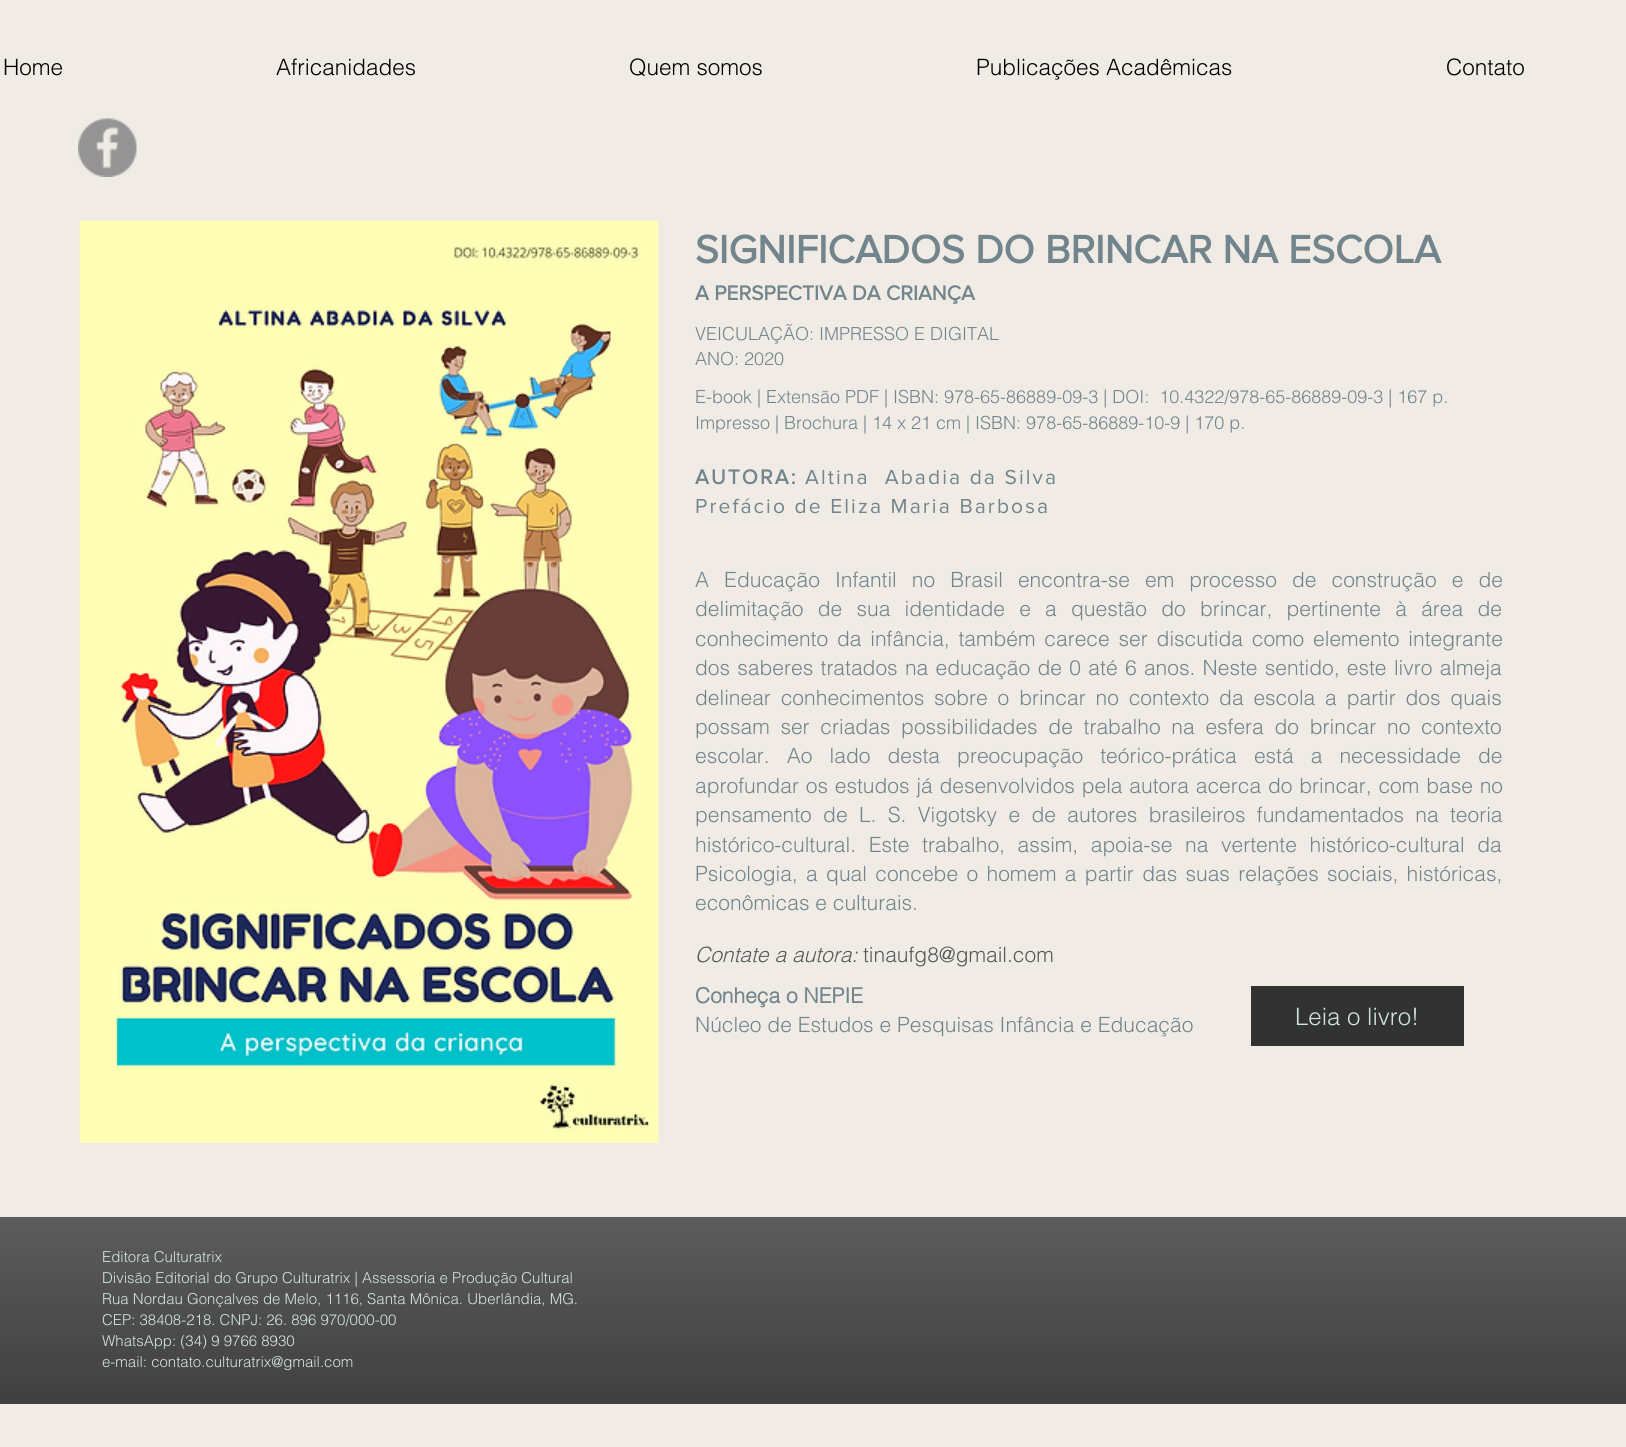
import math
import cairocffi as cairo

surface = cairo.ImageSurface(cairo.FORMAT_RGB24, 1626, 1447)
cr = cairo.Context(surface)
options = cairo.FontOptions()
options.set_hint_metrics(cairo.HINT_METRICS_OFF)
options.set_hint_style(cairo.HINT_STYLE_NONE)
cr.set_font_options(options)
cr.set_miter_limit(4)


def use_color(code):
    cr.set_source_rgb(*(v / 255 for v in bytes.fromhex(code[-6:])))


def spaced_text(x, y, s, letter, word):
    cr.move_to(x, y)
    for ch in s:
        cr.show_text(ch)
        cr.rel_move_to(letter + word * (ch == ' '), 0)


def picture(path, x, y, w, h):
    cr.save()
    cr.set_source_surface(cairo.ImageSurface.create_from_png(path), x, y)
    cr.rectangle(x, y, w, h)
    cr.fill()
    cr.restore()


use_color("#f0ece5")
cr.paint()
cr.select_font_face("helvetica Light")
cr.set_font_size(22.5)
use_color("#000000")
cr.move_to(3, 75)
cr.show_text("Home")
cr.move_to(276, 75)
cr.show_text("Africanidades")
cr.move_to(629, 75)
cr.show_text("Quem somos")
cr.move_to(976, 75)
cr.show_text("Publicações Acadêmicas")
cr.move_to(1446, 75)
cr.show_text("Contato")
picture("img1.png", 78, 118, 59, 59)
picture("img2.png", 79, 220, 580, 923)
cr.select_font_face("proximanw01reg", cairo.FONT_SLANT_NORMAL, cairo.FONT_WEIGHT_BOLD)
cr.set_font_size(40.5)
use_color("#72858c")
cr.move_to(695, 263)
cr.show_text("SIGNIFICADOS DO BRINCAR NA ESCOLA")
cr.set_font_size(21)
cr.move_to(695, 300)
cr.show_text("A PERSPECTIVA DA CRIANÇA")
cr.select_font_face("helvetica Light")
cr.set_font_size(18)
cr.move_to(695, 340)
cr.show_text("VEICULAÇÃO: IMPRESSO E DIGITAL")
cr.move_to(695, 365)
cr.show_text("ANO: 2020")
cr.move_to(695, 403)
cr.show_text("E-book | Extensão PDF | ISBN: 978-65-86889-09-3 | DOI:  10.4322/978-65-86889-09-3 | 167 p.")
cr.move_to(695, 429)
cr.show_text("Impresso | Brochura | 14 x 21 cm | ISBN: 978-65-86889-10-9 | 170 p.")
cr.select_font_face("proximanw01reg", cairo.FONT_SLANT_NORMAL, cairo.FONT_WEIGHT_BOLD)
cr.set_font_size(21)
spaced_text(695, 484, "AUTORA:", 2.1, 0)
cr.select_font_face("proximanw01reg")
spaced_text(805, 484, "Altina  Abadia da Silva", 2.1, 0)
spaced_text(695, 513, "Prefácio de Eliza Maria Barbosa", 2.1, 0)
cr.select_font_face("helvetica Light")
spaced_text(695, 587, "A Educação Infantil no Brasil encontra-se em processo de construção e de", 0, 9.25)
spaced_text(695, 616, "delimitação de sua identidade e a questão do brincar, pertinente à área de", 0, 8.4)
spaced_text(695, 646, "conhecimento da infância, também carece ser discutida como elemento integrante", 0, 3)
spaced_text(695, 675, "dos saberes tratados na educação de 0 até 6 anos. Neste sentido, este livro almeja", 0, 1.5)
spaced_text(695, 705, "delinear conhecimentos sobre o brincar no contexto da escola a partir dos quais", 0, 4)
spaced_text(695, 734, "possam ser criadas possibilidades de trabalho na esfera do brincar no contexto", 0, 4.9)
spaced_text(695, 763, "escolar. Ao lado desta preocupação teórico-prática está a necessidade de", 0, 11.25)
spaced_text(695, 793, "aprofundar os estudos já desenvolvidos pela autora acerca do brincar, com base no", 0, 1)
spaced_text(695, 822, "pensamento de L. S. Vigotsky e de autores brasileiros fundamentados na teoria", 0, 5.5)
spaced_text(695, 852, "histórico-cultural. Este trabalho, assim, apoia-se na vertente histórico-cultural da", 0, 6.75)
spaced_text(695, 881, "Psicologia, a qual concebe o homem a partir das suas relações sociais, históricas,", 0, 2.5)
cr.move_to(695, 910)
cr.show_text("econômicas e culturais.")
cr.select_font_face("helvetica Light", cairo.FONT_SLANT_ITALIC)
use_color("#535b58")
cr.move_to(695, 962)
cr.show_text("Contate a autora:")
cr.select_font_face("helvetica Light")
cr.move_to(863, 962)
cr.show_text("tinaufg8@gmail.com")
cr.select_font_face("helvetica", cairo.FONT_SLANT_NORMAL, cairo.FONT_WEIGHT_BOLD)
use_color("#72858c")
cr.move_to(695, 1003)
cr.show_text("Conheça o NEPIE")
cr.select_font_face("helvetica Light")
cr.move_to(695, 1032)
cr.show_text("Núcleo de Estudos e Pesquisas Infância e Educação")
use_color("#323232")
cr.rectangle(1251, 986, 213, 60)
cr.fill()
cr.set_font_size(24)
use_color("#d0e5de")
cr.move_to(1295, 1025)
cr.show_text("Leia o livro!")
use_color("#242323")
cr.rectangle(0, 1217, 1626, 187)
cr.fill()
picture("img3.png", 0, 1217, 1626, 187)
cr.set_font_size(15)
use_color("#d0e5de")
cr.move_to(102, 1262)
cr.show_text("Editora Culturatrix")
cr.move_to(102, 1283)
cr.show_text("Divisão Editorial do Grupo Culturatrix | Assessoria e Produção Cultural")
cr.move_to(102, 1304)
cr.show_text("Rua Nordau Gonçalves de Melo, 1116, Santa Mônica. Uberlândia, MG.")
cr.move_to(102, 1325)
cr.show_text("CEP: 38408-218. CNPJ: 26. 896 970/000-00")
cr.move_to(102, 1346)
cr.show_text("WhatsApp: (34) 9 9766 8930")
cr.move_to(102, 1367)
cr.show_text("e-mail: contato.culturatrix@gmail.com")
surface.write_to_png("result.png")
